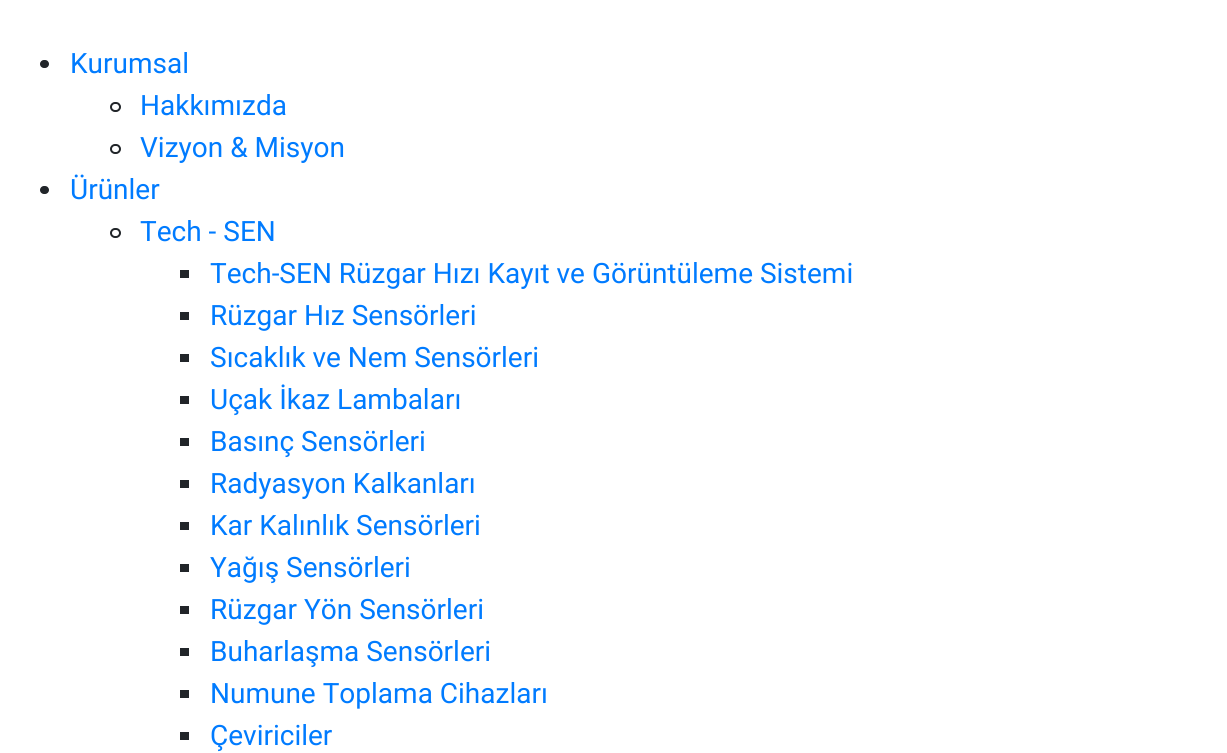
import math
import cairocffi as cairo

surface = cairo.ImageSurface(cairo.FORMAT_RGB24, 1227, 753)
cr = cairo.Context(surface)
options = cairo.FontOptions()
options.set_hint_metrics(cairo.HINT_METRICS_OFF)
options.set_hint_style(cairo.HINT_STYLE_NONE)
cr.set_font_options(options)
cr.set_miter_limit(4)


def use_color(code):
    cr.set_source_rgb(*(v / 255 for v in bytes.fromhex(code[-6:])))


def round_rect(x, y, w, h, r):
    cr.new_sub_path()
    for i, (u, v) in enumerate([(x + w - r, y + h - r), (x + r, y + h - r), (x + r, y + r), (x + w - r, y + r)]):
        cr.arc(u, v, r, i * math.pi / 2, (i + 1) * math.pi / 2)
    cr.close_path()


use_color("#ffffff")
cr.paint()
use_color("#212529")
round_rect(40, 60, 9, 8, 4)
cr.fill()
cr.select_font_face("Roboto")
cr.set_font_size(28)
use_color("#007bff")
cr.move_to(70, 73)
cr.show_text("Kurumsal")
round_rect(111, 103, 9, 8, 4)
use_color("#212529")
cr.stroke()
use_color("#007bff")
cr.move_to(140, 115)
cr.show_text("Hakkımızda")
round_rect(111, 145, 9, 8, 4)
use_color("#212529")
cr.stroke()
use_color("#007bff")
cr.move_to(140, 157)
cr.show_text("Vizyon & Misyon")
use_color("#212529")
round_rect(40, 186, 9, 8, 4)
cr.fill()
use_color("#007bff")
cr.move_to(70, 199)
cr.show_text("Ürünler")
round_rect(111, 229, 9, 8, 4)
use_color("#212529")
cr.stroke()
use_color("#007bff")
cr.move_to(140, 241)
cr.show_text("Tech - SEN")
use_color("#212529")
cr.rectangle(180, 270, 9, 8)
cr.fill()
use_color("#007bff")
cr.move_to(210, 283)
cr.show_text("Tech-SEN Rüzgar Hızı Kayıt ve Görüntüleme Sistemi")
use_color("#212529")
cr.rectangle(180, 312, 9, 8)
cr.fill()
use_color("#007bff")
cr.move_to(210, 325)
cr.show_text("Rüzgar Hız Sensörleri")
use_color("#212529")
cr.rectangle(180, 354, 9, 8)
cr.fill()
use_color("#007bff")
cr.move_to(210, 367)
cr.show_text("Sıcaklık ve Nem Sensörleri")
use_color("#212529")
cr.rectangle(180, 396, 9, 8)
cr.fill()
use_color("#007bff")
cr.move_to(210, 409)
cr.show_text("Uçak İkaz Lambaları")
use_color("#212529")
cr.rectangle(180, 438, 9, 8)
cr.fill()
use_color("#007bff")
cr.move_to(210, 451)
cr.show_text("Basınç Sensörleri")
use_color("#212529")
cr.rectangle(180, 480, 9, 8)
cr.fill()
use_color("#007bff")
cr.move_to(210, 493)
cr.show_text("Radyasyon Kalkanları")
use_color("#212529")
cr.rectangle(180, 522, 9, 8)
cr.fill()
use_color("#007bff")
cr.move_to(210, 535)
cr.show_text("Kar Kalınlık Sensörleri")
use_color("#212529")
cr.rectangle(180, 564, 9, 8)
cr.fill()
use_color("#007bff")
cr.move_to(210, 577)
cr.show_text("Yağış Sensörleri")
use_color("#212529")
cr.rectangle(180, 606, 9, 8)
cr.fill()
use_color("#007bff")
cr.move_to(210, 619)
cr.show_text("Rüzgar Yön Sensörleri")
use_color("#212529")
cr.rectangle(180, 648, 9, 8)
cr.fill()
use_color("#007bff")
cr.move_to(210, 661)
cr.show_text("Buharlaşma Sensörleri")
use_color("#212529")
cr.rectangle(180, 690, 9, 8)
cr.fill()
use_color("#007bff")
cr.move_to(210, 703)
cr.show_text("Numune Toplama Cihazları")
use_color("#212529")
cr.rectangle(180, 732, 9, 8)
cr.fill()
use_color("#007bff")
cr.move_to(210, 745)
cr.show_text("Çeviriciler")
surface.write_to_png("result.png")
